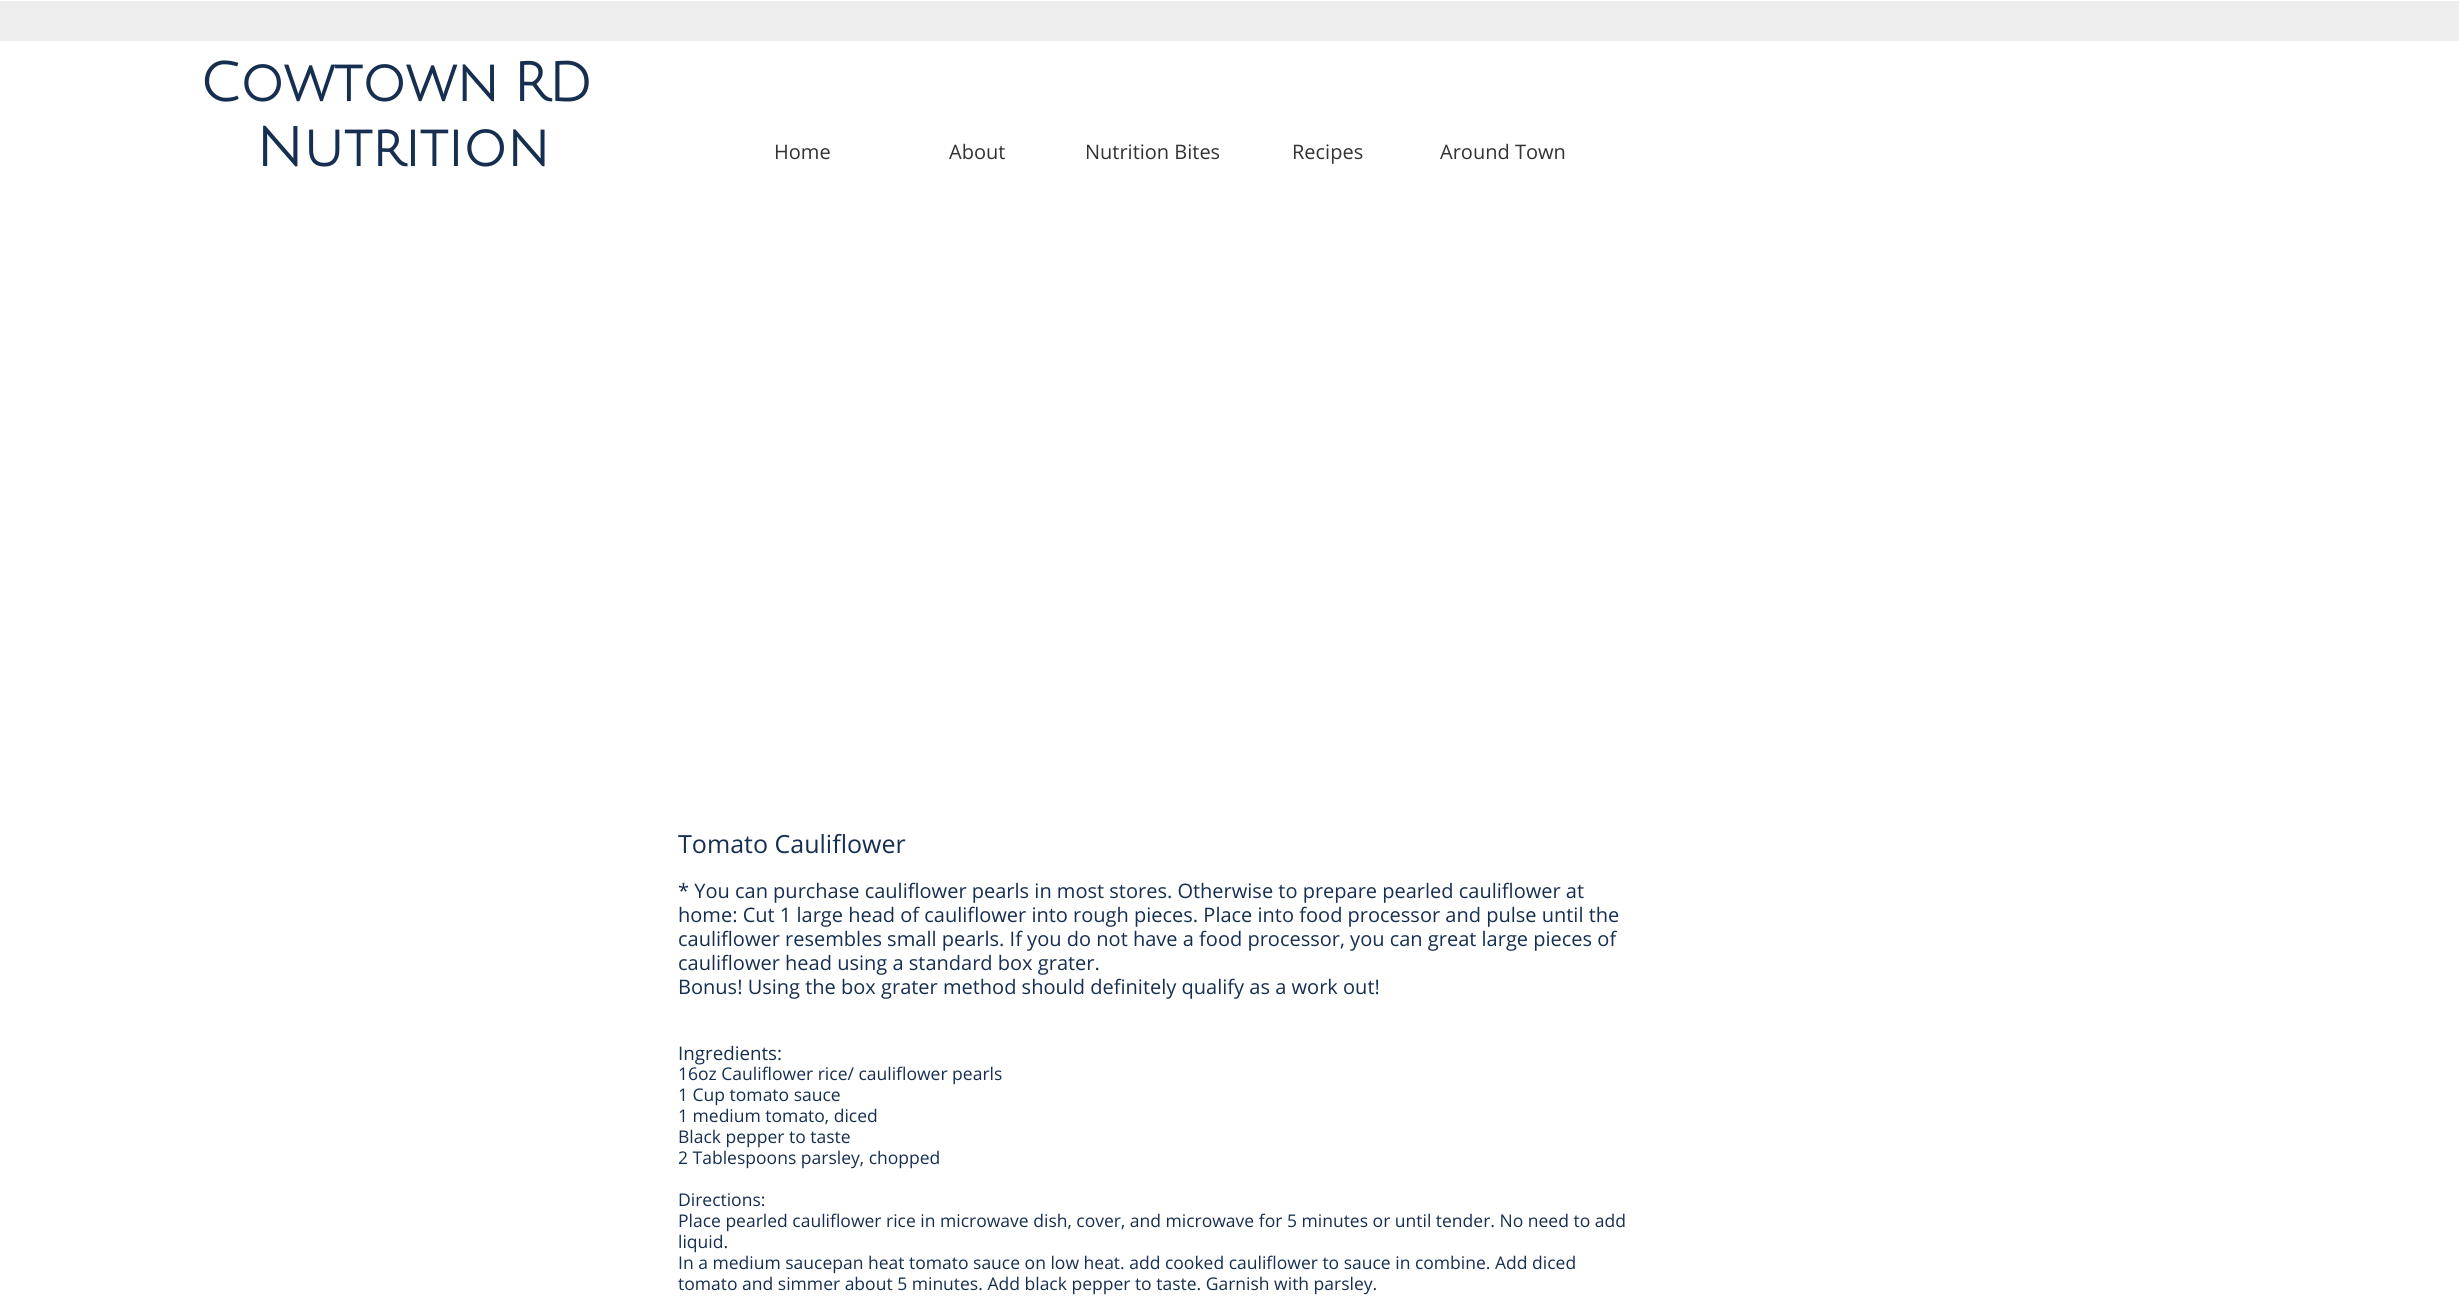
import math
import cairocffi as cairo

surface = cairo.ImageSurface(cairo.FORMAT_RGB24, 2459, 1315)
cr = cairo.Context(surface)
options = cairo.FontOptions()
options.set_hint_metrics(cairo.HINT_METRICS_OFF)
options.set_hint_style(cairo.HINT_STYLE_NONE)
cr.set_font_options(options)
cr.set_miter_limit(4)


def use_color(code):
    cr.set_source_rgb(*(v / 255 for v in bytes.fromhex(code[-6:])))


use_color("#ffffff")
cr.paint()
use_color("#eeeeee")
cr.rectangle(0, 1, 2459, 40)
cr.fill()
cr.select_font_face("Julius Sans One", cairo.FONT_SLANT_NORMAL, cairo.FONT_WEIGHT_BOLD)
cr.set_font_size(53.75)
use_color("#162f50")
cr.move_to(200, 101)
cr.show_text("Cowtown")
cr.move_to(513, 101)
cr.show_text("RD")
cr.move_to(256, 166)
cr.show_text("Nutrition")
cr.select_font_face("Open Sans")
cr.set_font_size(20)
use_color("#333333")
cr.move_to(774, 159)
cr.show_text("Home")
cr.move_to(949, 159)
cr.show_text("About")
cr.move_to(1085, 159)
cr.show_text("Nutrition Bites")
cr.move_to(1292, 159)
cr.show_text("Recipes")
cr.move_to(1440, 159)
cr.show_text("Around Town")
cr.set_font_size(25)
use_color("#162f50")
cr.move_to(678, 853)
cr.show_text("Tomato Cauliflower")
cr.set_font_size(20)
cr.move_to(678, 898)
cr.show_text("* You can purchase cauliflower pearls in most stores. Otherwise to prepare pearled cauliflower at")
cr.move_to(678, 922)
cr.show_text("home: Cut 1 large head of cauliflower into rough pieces. Place into food processor and pulse until the")
cr.move_to(678, 946)
cr.show_text("cauliflower resembles small pearls. If you do not have a food processor, you can great large pieces of")
cr.move_to(678, 970)
cr.show_text("cauliflower head using a standard box grater.")
cr.move_to(678, 994)
cr.show_text("Bonus! Using the box grater method should definitely qualify as a work out!")
cr.set_font_size(18.75)
cr.move_to(678, 1060)
cr.show_text("Ingredients:")
cr.set_font_size(17.5)
cr.move_to(678, 1080)
cr.show_text("16oz Cauliflower rice/ cauliflower pearls")
cr.move_to(678, 1101)
cr.show_text("1 Cup tomato sauce")
cr.move_to(678, 1122)
cr.show_text("1 medium tomato, diced")
cr.move_to(678, 1143)
cr.show_text("Black pepper to taste")
cr.move_to(678, 1164)
cr.show_text("2 Tablespoons parsley, chopped")
cr.move_to(678, 1206)
cr.show_text("Directions:")
cr.move_to(678, 1227)
cr.show_text("Place pearled cauliflower rice in microwave dish, cover, and microwave for 5 minutes or until tender. No need to add")
cr.move_to(678, 1248)
cr.show_text("liquid.")
cr.move_to(678, 1269)
cr.show_text("In a medium saucepan heat tomato sauce on low heat. add cooked cauliflower to sauce in combine. Add diced")
cr.move_to(678, 1290)
cr.show_text("tomato and simmer about 5 minutes. Add black pepper to taste. Garnish with parsley.")
surface.write_to_png("result.png")
